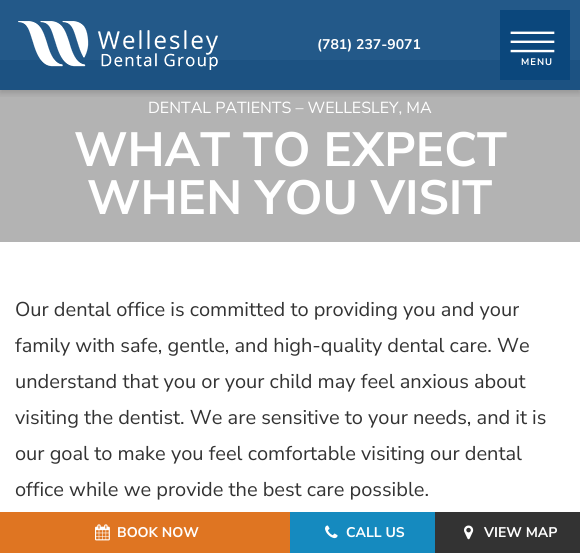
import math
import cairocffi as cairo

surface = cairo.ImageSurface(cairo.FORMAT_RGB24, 580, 553)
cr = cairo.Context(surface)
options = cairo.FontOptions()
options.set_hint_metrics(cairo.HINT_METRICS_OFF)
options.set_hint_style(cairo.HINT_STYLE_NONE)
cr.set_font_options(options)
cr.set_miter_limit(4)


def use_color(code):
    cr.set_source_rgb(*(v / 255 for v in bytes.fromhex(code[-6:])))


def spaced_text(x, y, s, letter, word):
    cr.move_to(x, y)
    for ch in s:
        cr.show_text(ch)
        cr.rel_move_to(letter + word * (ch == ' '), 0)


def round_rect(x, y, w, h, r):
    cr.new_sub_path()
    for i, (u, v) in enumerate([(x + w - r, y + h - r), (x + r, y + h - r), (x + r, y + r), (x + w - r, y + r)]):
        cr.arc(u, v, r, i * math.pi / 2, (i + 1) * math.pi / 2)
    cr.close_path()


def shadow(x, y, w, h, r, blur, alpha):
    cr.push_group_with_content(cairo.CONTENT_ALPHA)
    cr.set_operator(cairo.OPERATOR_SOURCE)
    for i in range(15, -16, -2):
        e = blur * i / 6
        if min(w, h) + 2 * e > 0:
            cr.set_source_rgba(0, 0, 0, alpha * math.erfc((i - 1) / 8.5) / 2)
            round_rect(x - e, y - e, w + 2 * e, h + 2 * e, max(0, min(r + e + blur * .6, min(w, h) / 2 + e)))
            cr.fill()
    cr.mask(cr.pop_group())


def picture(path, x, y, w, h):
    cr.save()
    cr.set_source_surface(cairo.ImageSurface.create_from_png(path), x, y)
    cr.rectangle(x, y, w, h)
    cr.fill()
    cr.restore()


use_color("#ffffff")
cr.paint()
use_color("#235989")
cr.rectangle(0, 0, 580, 60)
cr.fill()
use_color("#b3b3b3")
cr.rectangle(0, 90, 580, 152)
cr.fill()
use_color("#1c5282")
cr.rectangle(0, 60, 580, 30)
cr.fill()
cr.save()
cr.rectangle(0, 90, 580, 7)
cr.clip()
use_color("#181718")
shadow(0, 3, 580, 90, 0, 3.5, 0.2)
cr.restore()
picture("img1.png", 18, 21, 200, 49)
cr.select_font_face("Nunito Sans", cairo.FONT_SLANT_NORMAL, cairo.FONT_WEIGHT_BOLD)
cr.set_font_size(14)
use_color("#ffffff")
cr.move_to(317, 49)
cr.show_text("(781) 237-9071")
use_color("#0b477c")
cr.rectangle(500, 10, 70, 70)
cr.fill()
cr.select_font_face("Liberation Serif")
cr.set_font_size(48)
use_color("#ffffff")
cr.save()
cr.translate(521, 28)
cr.rotate(90 * math.pi / 180)
spaced_text(0, 0, "|||", -0.5, 0)
cr.restore()
cr.select_font_face("Nunito Sans", cairo.FONT_SLANT_NORMAL, cairo.FONT_WEIGHT_BOLD)
cr.set_font_size(9.5)
spaced_text(521, 65, "MENU", 1, 0)
cr.select_font_face("Nunito Sans")
cr.set_font_size(16)
cr.move_to(148, 113)
cr.show_text("DENTAL PATIENTS – WELLESLEY, MA")
cr.select_font_face("Nunito Sans", cairo.FONT_SLANT_NORMAL, cairo.FONT_WEIGHT_BOLD)
cr.set_font_size(48)
cr.move_to(74, 166)
cr.show_text("WHAT TO EXPECT")
cr.move_to(87, 214)
cr.show_text("WHEN YOU VISIT")
cr.select_font_face("Nunito Sans")
cr.set_font_size(20)
use_color("#333333")
cr.move_to(15, 316)
cr.show_text("Our dental office is committed to providing you and your")
cr.move_to(15, 352)
cr.show_text("family with safe, gentle, and high-quality dental care. We")
cr.move_to(15, 388)
cr.show_text("understand that you or your child may feel anxious about")
cr.move_to(15, 424)
cr.show_text("visiting the dentist. We are sensitive to your needs, and it is")
cr.move_to(15, 460)
cr.show_text("our goal to make you feel comfortable visiting our dental")
cr.move_to(15, 496)
cr.show_text("office while we provide the best care possible.")
use_color("#df7522")
cr.rectangle(0, 512, 290, 41)
cr.fill()
picture("img2.png", 95, 524, 15, 17)
cr.select_font_face("Nunito Sans", cairo.FONT_SLANT_NORMAL, cairo.FONT_WEIGHT_BOLD)
cr.set_font_size(14)
use_color("#ffffff")
cr.move_to(117, 537)
cr.show_text("BOOK NOW")
use_color("#158abf")
cr.rectangle(290, 512, 145, 41)
cr.fill()
picture("img3.png", 325, 525, 13, 14)
use_color("#ffffff")
cr.move_to(346, 537)
cr.show_text("CALL US")
use_color("#333333")
cr.rectangle(435, 512, 145, 41)
cr.fill()
picture("img4.png", 464, 525, 10, 15)
use_color("#ffffff")
cr.move_to(484, 537)
cr.show_text("VIEW MAP")
surface.write_to_png("result.png")
